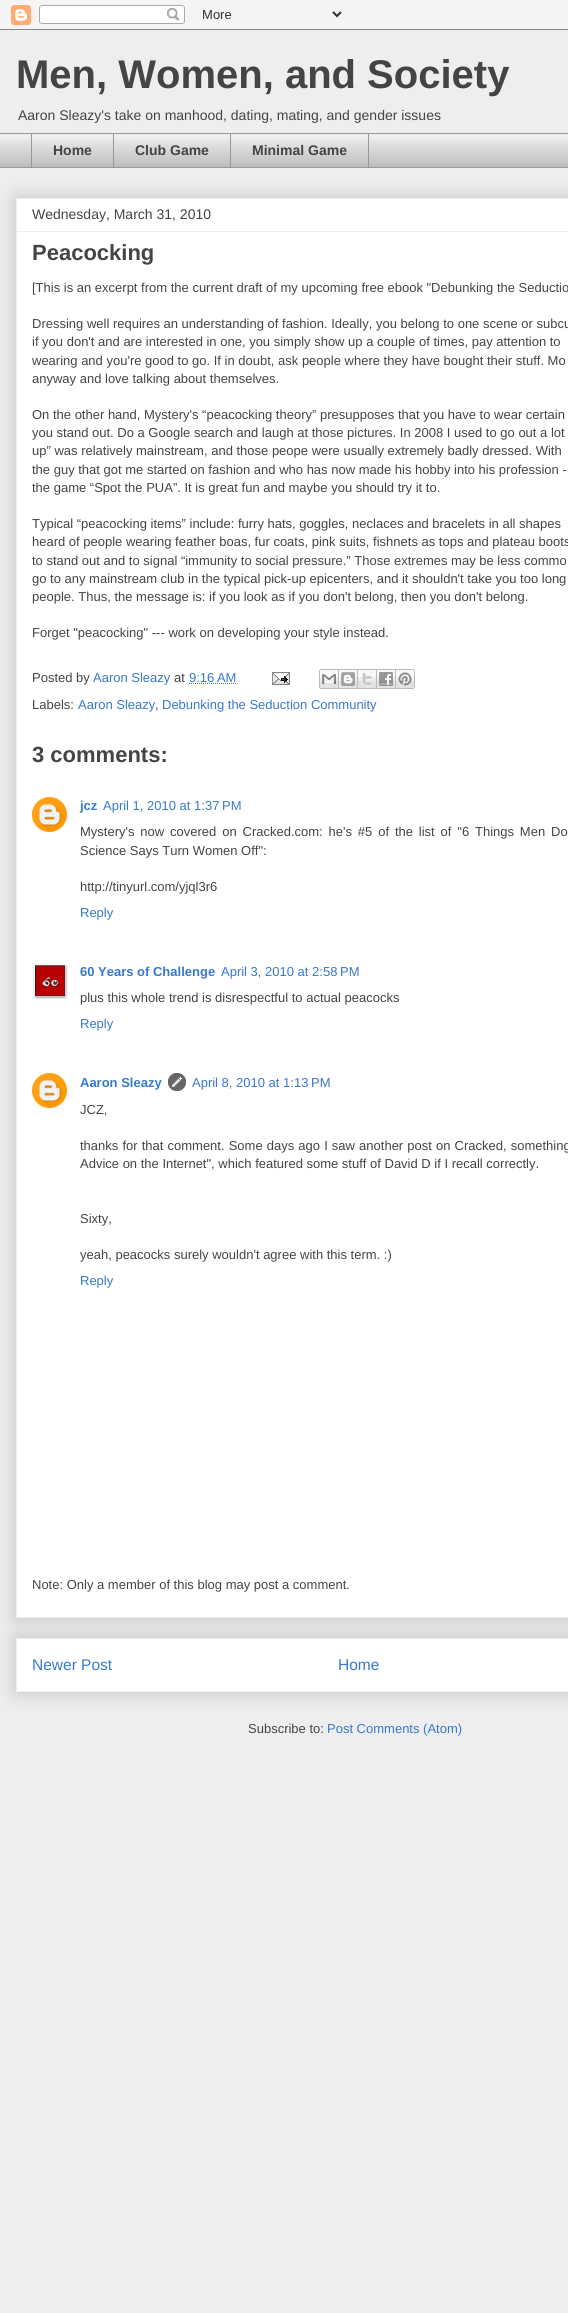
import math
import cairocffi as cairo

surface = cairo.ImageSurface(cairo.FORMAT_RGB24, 568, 2313)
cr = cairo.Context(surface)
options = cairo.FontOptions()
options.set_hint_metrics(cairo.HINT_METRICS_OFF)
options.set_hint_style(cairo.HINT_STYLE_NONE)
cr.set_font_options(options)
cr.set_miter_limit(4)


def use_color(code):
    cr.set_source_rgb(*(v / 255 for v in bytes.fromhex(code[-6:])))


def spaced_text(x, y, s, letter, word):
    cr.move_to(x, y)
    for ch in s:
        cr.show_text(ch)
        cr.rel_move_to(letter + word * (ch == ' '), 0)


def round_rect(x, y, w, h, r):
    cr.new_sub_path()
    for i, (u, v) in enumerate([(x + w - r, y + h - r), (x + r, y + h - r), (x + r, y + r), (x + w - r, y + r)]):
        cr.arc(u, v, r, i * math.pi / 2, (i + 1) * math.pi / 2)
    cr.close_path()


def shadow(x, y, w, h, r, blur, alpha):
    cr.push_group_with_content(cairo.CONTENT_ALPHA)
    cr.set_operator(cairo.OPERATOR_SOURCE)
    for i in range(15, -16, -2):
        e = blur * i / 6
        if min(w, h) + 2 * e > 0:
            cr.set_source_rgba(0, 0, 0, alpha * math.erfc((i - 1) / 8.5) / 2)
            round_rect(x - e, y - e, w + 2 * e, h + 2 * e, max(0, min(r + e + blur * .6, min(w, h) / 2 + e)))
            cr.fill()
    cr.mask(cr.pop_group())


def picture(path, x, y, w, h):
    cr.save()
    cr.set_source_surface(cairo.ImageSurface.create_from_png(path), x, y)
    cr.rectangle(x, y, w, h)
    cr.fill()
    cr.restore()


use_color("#eeeeee")
cr.paint()
picture("img1.png", 0, 0, 568, 30)
cr.select_font_face("Liberation Sans", cairo.FONT_SLANT_NORMAL, cairo.FONT_WEIGHT_BOLD)
cr.set_font_size(40)
use_color("#444444")
cr.move_to(16, 88)
cr.show_text("Men, Women, and Society")
cr.select_font_face("Liberation Sans")
cr.set_font_size(14)
cr.move_to(18, 120)
cr.show_text("Aaron Sleazy's take on manhood, dating, mating, and gender issues")
picture("img2.png", 0, 139, 568, 28)
use_color("#999999")
cr.rectangle(0, 133, 568, 1)
cr.fill()
cr.rectangle(31, 133, 1, 35)
cr.fill()
cr.select_font_face("Liberation Sans", cairo.FONT_SLANT_NORMAL, cairo.FONT_WEIGHT_BOLD)
use_color("#444444")
cr.move_to(53, 155)
cr.show_text("Home")
use_color("#999999")
cr.rectangle(113, 133, 1, 35)
cr.fill()
use_color("#444444")
cr.move_to(135, 155)
cr.show_text("Club Game")
cr.rectangle(230.5, 133.5, 138, 34)
use_color("#999999")
cr.set_line_width(1)
cr.stroke()
use_color("#444444")
cr.move_to(252, 155)
cr.show_text("Minimal Game")
use_color("#999999")
cr.rectangle(0, 167, 568, 1)
cr.fill()
use_color("#000000")
shadow(16, 1638, 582, 54, 0, 10, 0.2)
use_color("#ffffff")
cr.rectangle(16.5, 1638.5, 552, 53)
cr.fill_preserve()
use_color("#eeeeee")
cr.stroke()
use_color("#000000")
shadow(16, 198, 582, 1420, 0, 10, 0.2)
use_color("#ffffff")
cr.rectangle(16.5, 198.5, 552, 1419)
cr.fill_preserve()
use_color("#eeeeee")
cr.stroke()
cr.select_font_face("Liberation Sans")
use_color("#444444")
cr.move_to(32, 219)
cr.show_text("Wednesday, March 31, 2010")
use_color("#eeeeee")
cr.rectangle(17, 231, 551, 1)
cr.fill()
cr.select_font_face("Liberation Sans", cairo.FONT_SLANT_NORMAL, cairo.FONT_WEIGHT_BOLD)
cr.set_font_size(22)
use_color("#444444")
cr.move_to(32, 260)
cr.show_text("Peacocking")
cr.select_font_face("Liberation Sans")
cr.set_font_size(13)
cr.move_to(32, 292)
cr.show_text("[This is an excerpt from the current draft of my upcoming free ebook \"Debunking the Seductio")
cr.move_to(32, 328)
cr.show_text("Dressing well requires an understanding of fashion. Ideally, you belong to one scene or subcu")
cr.move_to(32, 346)
cr.show_text("if you don't and are interested in one, you simply show up a couple of times, pay attention to")
cr.move_to(32, 365)
cr.show_text("wearing and you're good to go. If in doubt, ask people where they have bought their stuff. Mo")
cr.move_to(32, 383)
cr.show_text("anyway and love talking about themselves.")
cr.move_to(32, 419)
cr.show_text("On the other hand, Mystery's “peacocking theory” presupposes that you have to wear certain")
cr.move_to(32, 437)
cr.show_text("you stand out. Do a Google search and laugh at those pictures. In 2008 I used to go out a lot")
cr.move_to(32, 455)
cr.show_text("up” was relatively mainstream, and those peope were usually extremely badly dressed. With")
cr.move_to(32, 474)
cr.show_text("the guy that got me started on fashion and who has now made his hobby into his profession -")
cr.move_to(32, 492)
cr.show_text("the game “Spot the PUA”. It is great fun and maybe you should try it to.")
cr.move_to(32, 528)
cr.show_text("Typical “peacocking items” include: furry hats, goggles, neclaces and bracelets in all shapes")
cr.move_to(32, 546)
cr.show_text("heard of people wearing feather boas, fur coats, pink suits, fishnets as tops and plateau boots")
cr.move_to(32, 565)
cr.show_text("to stand out and to signal “immunity to social pressure.” Those extremes may be less commo")
cr.move_to(32, 583)
cr.show_text("go to any mainstream club in the typical pick-up epicenters, and it shouldn't take you too long")
cr.move_to(32, 601)
cr.show_text("people. Thus, the message is: if you look as if you don't belong, then you don't belong.")
cr.move_to(32, 637)
cr.show_text("Forget \"peacocking\" --- work on developing your style instead.")
cr.move_to(32, 682)
cr.show_text("Posted by")
use_color("#3778cd")
cr.move_to(93, 682)
cr.show_text("Aaron Sleazy")
use_color("#444444")
cr.move_to(174, 682)
cr.show_text("at")
use_color("#3778cd")
cr.move_to(189, 682)
cr.show_text("9:16 AM")
cr.new_path()
cr.move_to(189, 683.5)
cr.line_to(236, 683.5)
cr.set_dash([1, 1])
cr.stroke()
picture("img3.png", 272, 672, 18, 13)
picture("img4.png", 319, 669, 20, 20)
picture("img5.png", 339, 669, 19, 20)
picture("img6.png", 358, 669, 19, 20)
picture("img7.png", 377, 669, 19, 20)
picture("img8.png", 396, 669, 19, 20)
use_color("#444444")
cr.move_to(32, 709)
cr.show_text("Labels:")
use_color("#3778cd")
cr.move_to(78, 709)
cr.show_text("Aaron Sleazy")
use_color("#444444")
cr.move_to(155, 709)
cr.show_text(",")
use_color("#3778cd")
cr.move_to(162, 709)
cr.show_text("Debunking the Seduction Community")
cr.select_font_face("Liberation Sans", cairo.FONT_SLANT_NORMAL, cairo.FONT_WEIGHT_BOLD)
cr.set_font_size(22)
use_color("#444444")
cr.move_to(32, 762)
cr.show_text("3 comments:")
picture("img9.png", 32, 797, 35, 35)
cr.set_font_size(13)
use_color("#3778cd")
cr.move_to(80, 810)
cr.show_text("jcz")
cr.select_font_face("Liberation Sans")
cr.move_to(103, 810)
cr.show_text("April 1, 2010 at 1:37 PM")
use_color("#444444")
spaced_text(80, 836, "Mystery's now covered on Cracked.com: he's #5 of the list of \"6 Things Men Do", 0, 2.25)
cr.move_to(80, 855)
cr.show_text("Science Says Turn Women Off\":")
cr.move_to(80, 891)
cr.show_text("http://tinyurl.com/yjql3r6")
use_color("#3778cd")
cr.move_to(80, 917)
cr.show_text("Reply")
picture("img10.png", 32, 963, 36, 36)
cr.select_font_face("Liberation Sans", cairo.FONT_SLANT_NORMAL, cairo.FONT_WEIGHT_BOLD)
cr.move_to(80, 976)
cr.show_text("60 Years of Challenge")
cr.select_font_face("Liberation Sans")
cr.move_to(221, 976)
cr.show_text("April 3, 2010 at 2:58 PM")
use_color("#444444")
cr.move_to(80, 1002)
cr.show_text("plus this whole trend is disrespectful to actual peacocks")
use_color("#3778cd")
cr.move_to(80, 1028)
cr.show_text("Reply")
picture("img9.png", 32, 1073, 35, 35)
cr.select_font_face("Liberation Sans", cairo.FONT_SLANT_NORMAL, cairo.FONT_WEIGHT_BOLD)
cr.move_to(80, 1087)
cr.show_text("Aaron Sleazy")
picture("img11.png", 168, 1073, 18, 18)
cr.select_font_face("Liberation Sans")
cr.move_to(192, 1087)
cr.show_text("April 8, 2010 at 1:13 PM")
use_color("#444444")
cr.move_to(80, 1114)
cr.show_text("JCZ,")
spaced_text(80, 1150, "thanks for that comment. Some days ago I saw another post on Cracked, something", 0, 0.5)
cr.move_to(80, 1168)
cr.show_text("Advice on the Internet\", which featured some stuff of David D if I recall correctly.")
cr.move_to(80, 1223)
cr.show_text("Sixty,")
cr.move_to(80, 1259)
cr.show_text("yeah, peacocks surely wouldn't agree with this term. :)")
use_color("#3778cd")
cr.move_to(80, 1285)
cr.show_text("Reply")
use_color("#444444")
cr.move_to(32, 1589)
cr.show_text("Note: Only a member of this blog may post a comment.")
cr.set_font_size(15.5)
use_color("#3778cd")
cr.move_to(32, 1670)
cr.show_text("Newer Post")
cr.move_to(338, 1670)
cr.show_text("Home")
cr.set_font_size(13)
use_color("#444444")
cr.move_to(248, 1733)
cr.show_text("Subscribe to:")
use_color("#3778cd")
cr.move_to(327, 1733)
cr.show_text("Post Comments (Atom)")
surface.write_to_png("result.png")
